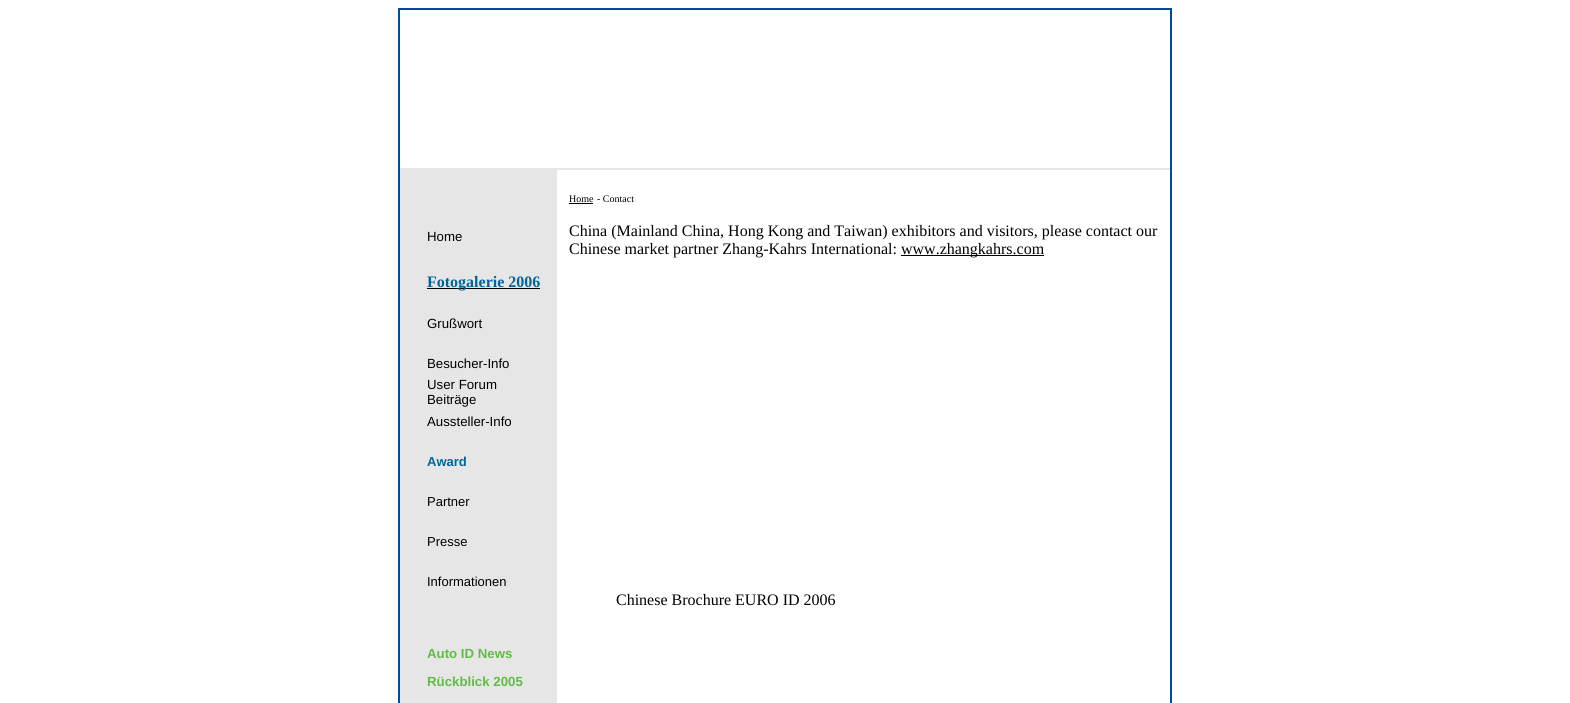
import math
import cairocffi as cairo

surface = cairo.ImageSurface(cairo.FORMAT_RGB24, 1570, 703)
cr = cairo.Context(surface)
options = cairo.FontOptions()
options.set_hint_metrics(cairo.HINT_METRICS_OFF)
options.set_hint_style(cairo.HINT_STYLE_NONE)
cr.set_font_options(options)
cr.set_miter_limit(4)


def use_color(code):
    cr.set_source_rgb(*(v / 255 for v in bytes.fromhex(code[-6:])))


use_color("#ffffff")
cr.paint()
cr.rectangle(398.5, 8.5, 773, 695)
use_color("#004c9a")
cr.set_line_width(1)
cr.stroke()
cr.rectangle(399.5, 9.5, 771, 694)
cr.stroke()
use_color("#e6e6e6")
cr.rectangle(400, 168, 770, 2)
cr.fill()
cr.rectangle(400, 170, 157, 533)
cr.fill()
cr.select_font_face("Liberation Sans")
cr.set_font_size(13.25)
use_color("#000000")
cr.move_to(427, 241)
cr.show_text("Home")
cr.rectangle(427, 288, 113, 1)
cr.fill()
cr.select_font_face("Liberation Serif", cairo.FONT_SLANT_NORMAL, cairo.FONT_WEIGHT_BOLD)
cr.set_font_size(16)
use_color("#006699")
cr.move_to(427, 287)
cr.show_text("Fotogalerie 2006")
cr.select_font_face("Liberation Sans")
cr.set_font_size(13.25)
use_color("#000000")
cr.move_to(427, 328)
cr.show_text("Grußwort")
cr.move_to(427, 368)
cr.show_text("Besucher-Info")
cr.move_to(427, 389)
cr.show_text("User Forum")
cr.move_to(427, 404)
cr.show_text("Beiträge")
cr.move_to(427, 426)
cr.show_text("Aussteller-Info")
cr.select_font_face("Liberation Sans", cairo.FONT_SLANT_NORMAL, cairo.FONT_WEIGHT_BOLD)
cr.set_font_size(13)
use_color("#006699")
cr.move_to(427, 466)
cr.show_text("Award")
cr.select_font_face("Liberation Sans")
use_color("#000000")
cr.move_to(427, 506)
cr.show_text("Partner")
cr.move_to(427, 546)
cr.show_text("Presse")
cr.move_to(427, 586)
cr.show_text("Informationen")
cr.select_font_face("Liberation Sans", cairo.FONT_SLANT_NORMAL, cairo.FONT_WEIGHT_BOLD)
cr.set_font_size(13.25)
use_color("#62bb46")
cr.move_to(427, 658)
cr.show_text("Auto ID News")
cr.move_to(427, 686)
cr.show_text("Rückblick 2005")
cr.select_font_face("Liberation Serif")
cr.set_font_size(10)
use_color("#000000")
cr.move_to(569, 202)
cr.show_text("Home")
cr.rectangle(569, 203, 24, 1)
cr.fill()
cr.move_to(597, 202)
cr.show_text("- Contact")
cr.set_font_size(16)
cr.move_to(569, 236)
cr.show_text("China (Mainland China, Hong Kong and Taiwan) exhibitors and visitors, please contact our")
cr.move_to(569, 254)
cr.show_text("Chinese market partner Zhang-Kahrs International:")
cr.rectangle(901, 255, 143, 1)
cr.fill()
cr.move_to(901, 254)
cr.show_text("www.zhangkahrs.com")
cr.move_to(616, 605)
cr.show_text("Chinese Brochure EURO ID 2006")
surface.write_to_png("result.png")
